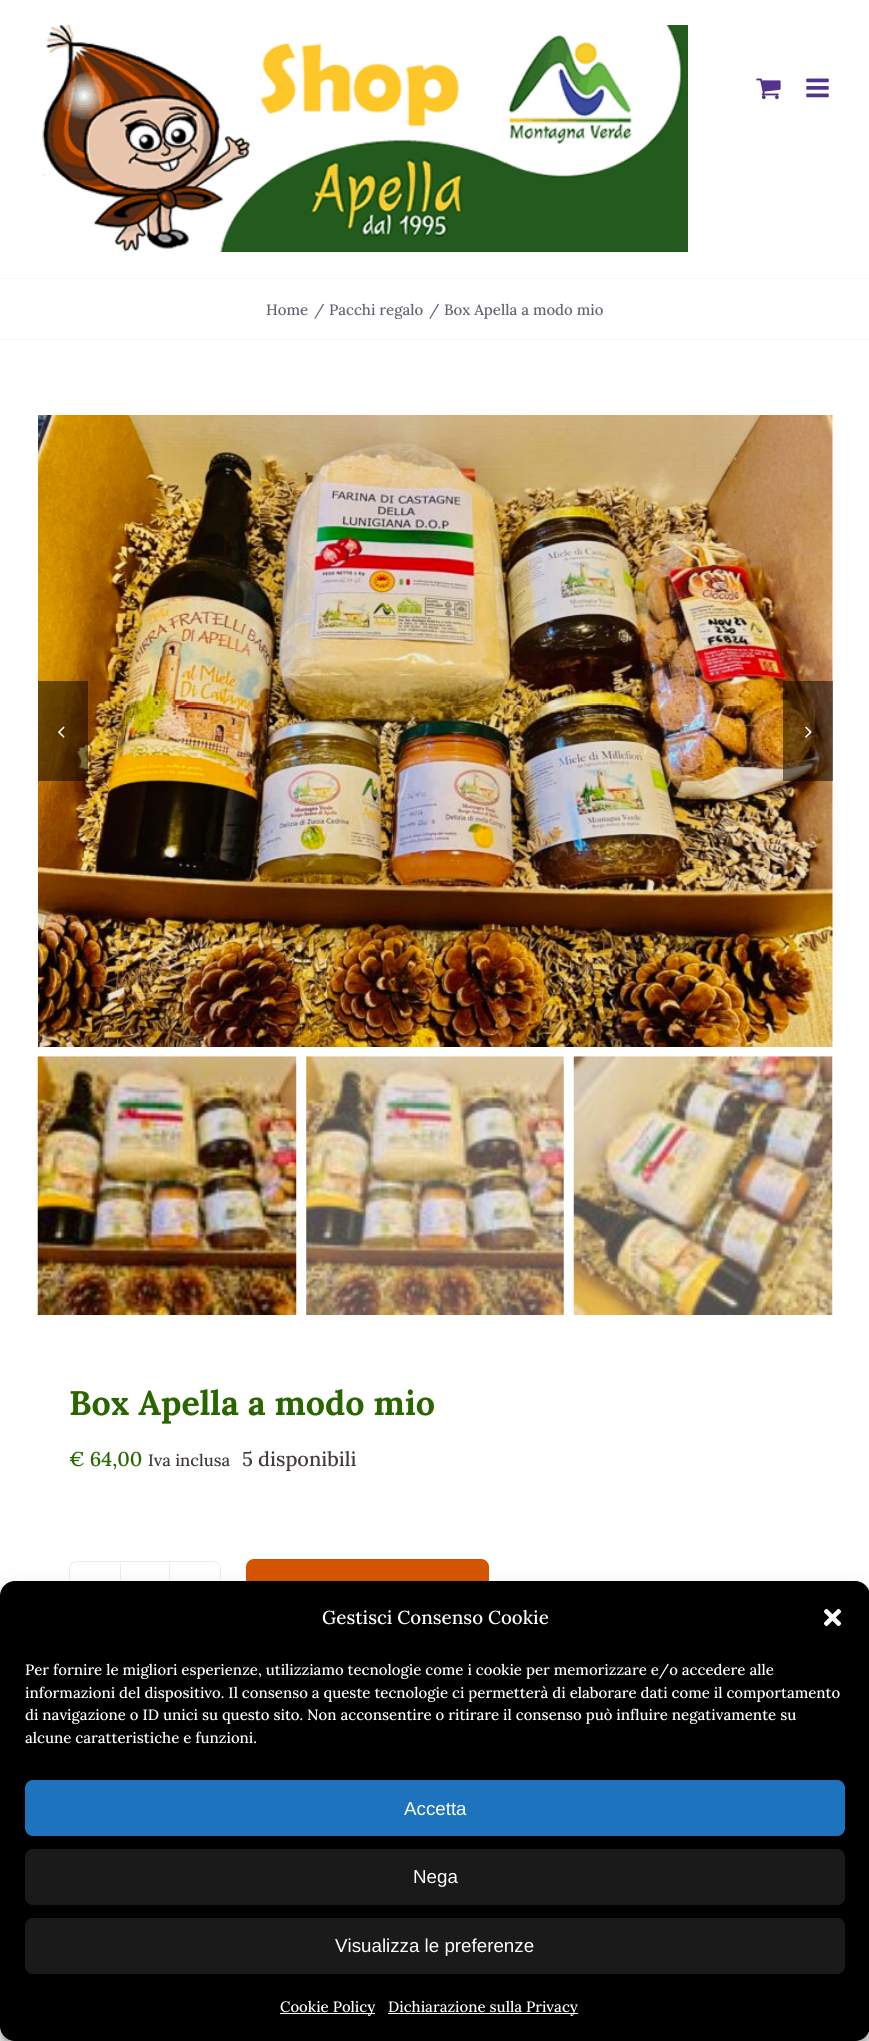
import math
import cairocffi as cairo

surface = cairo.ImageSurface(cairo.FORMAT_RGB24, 869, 2041)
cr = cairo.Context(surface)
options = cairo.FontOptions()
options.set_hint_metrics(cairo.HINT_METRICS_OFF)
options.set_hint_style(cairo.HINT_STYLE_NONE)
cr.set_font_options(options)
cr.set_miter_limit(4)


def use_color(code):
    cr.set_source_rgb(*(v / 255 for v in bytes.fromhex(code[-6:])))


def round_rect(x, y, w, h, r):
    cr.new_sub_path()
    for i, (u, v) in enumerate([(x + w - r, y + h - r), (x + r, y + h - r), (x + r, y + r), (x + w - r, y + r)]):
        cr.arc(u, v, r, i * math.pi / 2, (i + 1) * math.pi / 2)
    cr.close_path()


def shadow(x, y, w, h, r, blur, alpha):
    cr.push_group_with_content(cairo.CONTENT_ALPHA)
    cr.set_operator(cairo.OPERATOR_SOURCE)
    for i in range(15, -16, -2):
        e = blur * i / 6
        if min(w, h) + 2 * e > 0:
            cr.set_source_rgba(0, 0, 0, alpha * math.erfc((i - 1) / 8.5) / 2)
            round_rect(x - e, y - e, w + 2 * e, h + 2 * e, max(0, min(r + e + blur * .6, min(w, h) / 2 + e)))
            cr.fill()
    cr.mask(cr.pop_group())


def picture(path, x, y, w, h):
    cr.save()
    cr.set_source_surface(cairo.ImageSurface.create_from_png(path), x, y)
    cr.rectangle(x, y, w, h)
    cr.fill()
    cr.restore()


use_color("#ffffff")
cr.paint()
picture("img1.png", 42, 25, 646, 227)
picture("img2.png", 756, 78, 25, 22)
picture("img3.png", 806, 78, 23, 20)
use_color("#f8f6fa")
cr.rectangle(0, 278, 869, 1)
cr.fill()
cr.rectangle(0, 339, 869, 1)
cr.fill()
cr.select_font_face("Lora Medium")
cr.set_font_size(15)
use_color("#676371")
cr.move_to(266, 315)
cr.show_text("Home")
cr.move_to(314, 315)
cr.show_text("/")
cr.move_to(329, 315)
cr.show_text("Pacchi regalo")
cr.move_to(429, 315)
cr.show_text("/")
cr.move_to(444, 315)
cr.show_text("Box Apella a modo mio")
picture("img4.png", 38, 415, 795, 632)
cr.set_source_rgba(0, 0, 0, 0.5)
cr.rectangle(38, 681, 50, 100)
cr.fill()
picture("img5.png", 58, 726, 7, 12)
cr.rectangle(783, 681, 50, 100)
cr.fill()
picture("img6.png", 805, 726, 7, 12)
picture("img7.png", 37, 1056, 260, 259)
picture("img8.png", 306, 1056, 258, 259)
picture("img9.png", 573, 1056, 260, 259)
cr.select_font_face("Lora", cairo.FONT_SLANT_NORMAL, cairo.FONT_WEIGHT_BOLD)
cr.set_font_size(34)
use_color("#296600")
cr.move_to(69, 1415)
cr.show_text("Box Apella a modo mio")
cr.select_font_face("Lora Medium")
cr.set_font_size(20)
cr.move_to(69, 1466)
cr.show_text("€ 64,00")
cr.set_font_size(16.5)
use_color("#423b3a")
cr.move_to(148, 1466)
cr.show_text("Iva inclusa")
cr.set_font_size(20)
cr.move_to(242, 1466)
cr.show_text("5 disponibili")
round_rect(69.5, 1561.5, 151, 52, 7.5)
use_color("#ececed")
cr.set_line_width(1)
cr.stroke()
use_color("#ffffff")
cr.new_path()
cr.move_to(76, 1563)
cr.line_to(120, 1563)
cr.line_to(120, 1613)
cr.line_to(76, 1613)
cr.curve_to(72.5, 1613, 70, 1610.5, 70, 1607)
cr.line_to(70, 1569)
cr.curve_to(70, 1565.5, 72.5, 1563, 76, 1563)
cr.close_path()
cr.fill()
use_color("#ececed")
cr.rectangle(169, 1563, 1, 18)
cr.fill()
cr.rectangle(120, 1563, 1, 18)
cr.fill()
use_color("#ffffff")
cr.new_path()
cr.move_to(170, 1563)
cr.line_to(214, 1563)
cr.curve_to(217.5, 1563, 220, 1565.5, 220, 1569)
cr.line_to(220, 1607)
cr.curve_to(220, 1610.5, 217.5, 1613, 214, 1613)
cr.line_to(170, 1613)
cr.close_path()
cr.fill()
use_color("#d45500")
round_rect(247.5, 1560.5, 240, 56, 6.5)
cr.fill_preserve()
cr.set_line_width(3)
cr.stroke()
use_color("#000000")
shadow(0, 1589, 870, 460, 15, 4, 0.23)
shadow(0, 1594, 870, 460, 15, 12.5, 0.19)
use_color("#000000")
round_rect(0, 1581, 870, 460, 15)
cr.fill()
cr.set_font_size(18.75)
use_color("#ffffff")
cr.move_to(322, 1624)
cr.show_text("Gestisci Consenso Cookie")
picture("img10.png", 823, 1608, 19, 19)
cr.set_font_size(15)
cr.move_to(25, 1675)
cr.show_text("Per fornire le migliori esperienze, utilizziamo tecnologie come i cookie per memorizzare e/o accedere alle")
cr.move_to(25, 1698)
cr.show_text("informazioni del dispositivo. Il consenso a queste tecnologie ci permetterà di elaborare dati come il comportamento")
cr.move_to(25, 1720)
cr.show_text("di navigazione o ID unici su questo sito. Non acconsentire o ritirare il consenso può influire negativamente su")
cr.move_to(25, 1743)
cr.show_text("alcune caratteristiche e funzioni.")
use_color("#1e73be")
round_rect(25.5, 1780.5, 819, 55, 7.5)
cr.fill_preserve()
cr.set_line_width(1)
cr.stroke()
cr.select_font_face("Liberation Sans")
cr.set_font_size(18.75)
use_color("#ffffff")
cr.move_to(404, 1815)
cr.show_text("Accetta")
use_color("#1a1a1a")
round_rect(25.5, 1849.5, 819, 55, 7.5)
cr.fill_preserve()
cr.stroke()
use_color("#ffffff")
cr.move_to(413, 1883)
cr.show_text("Nega")
use_color("#1a1a1a")
round_rect(25.5, 1918.5, 819, 55, 7.5)
cr.fill_preserve()
cr.stroke()
use_color("#ffffff")
cr.move_to(335, 1952)
cr.show_text("Visualizza le preferenze")
cr.rectangle(280, 2013, 95, 1)
cr.fill()
cr.select_font_face("Lora Medium")
cr.set_font_size(15)
cr.move_to(280, 2012)
cr.show_text("Cookie Policy")
cr.rectangle(388, 2013, 190, 1)
cr.fill()
cr.move_to(388, 2012)
cr.show_text("Dichiarazione sulla Privacy")
surface.write_to_png("result.png")
